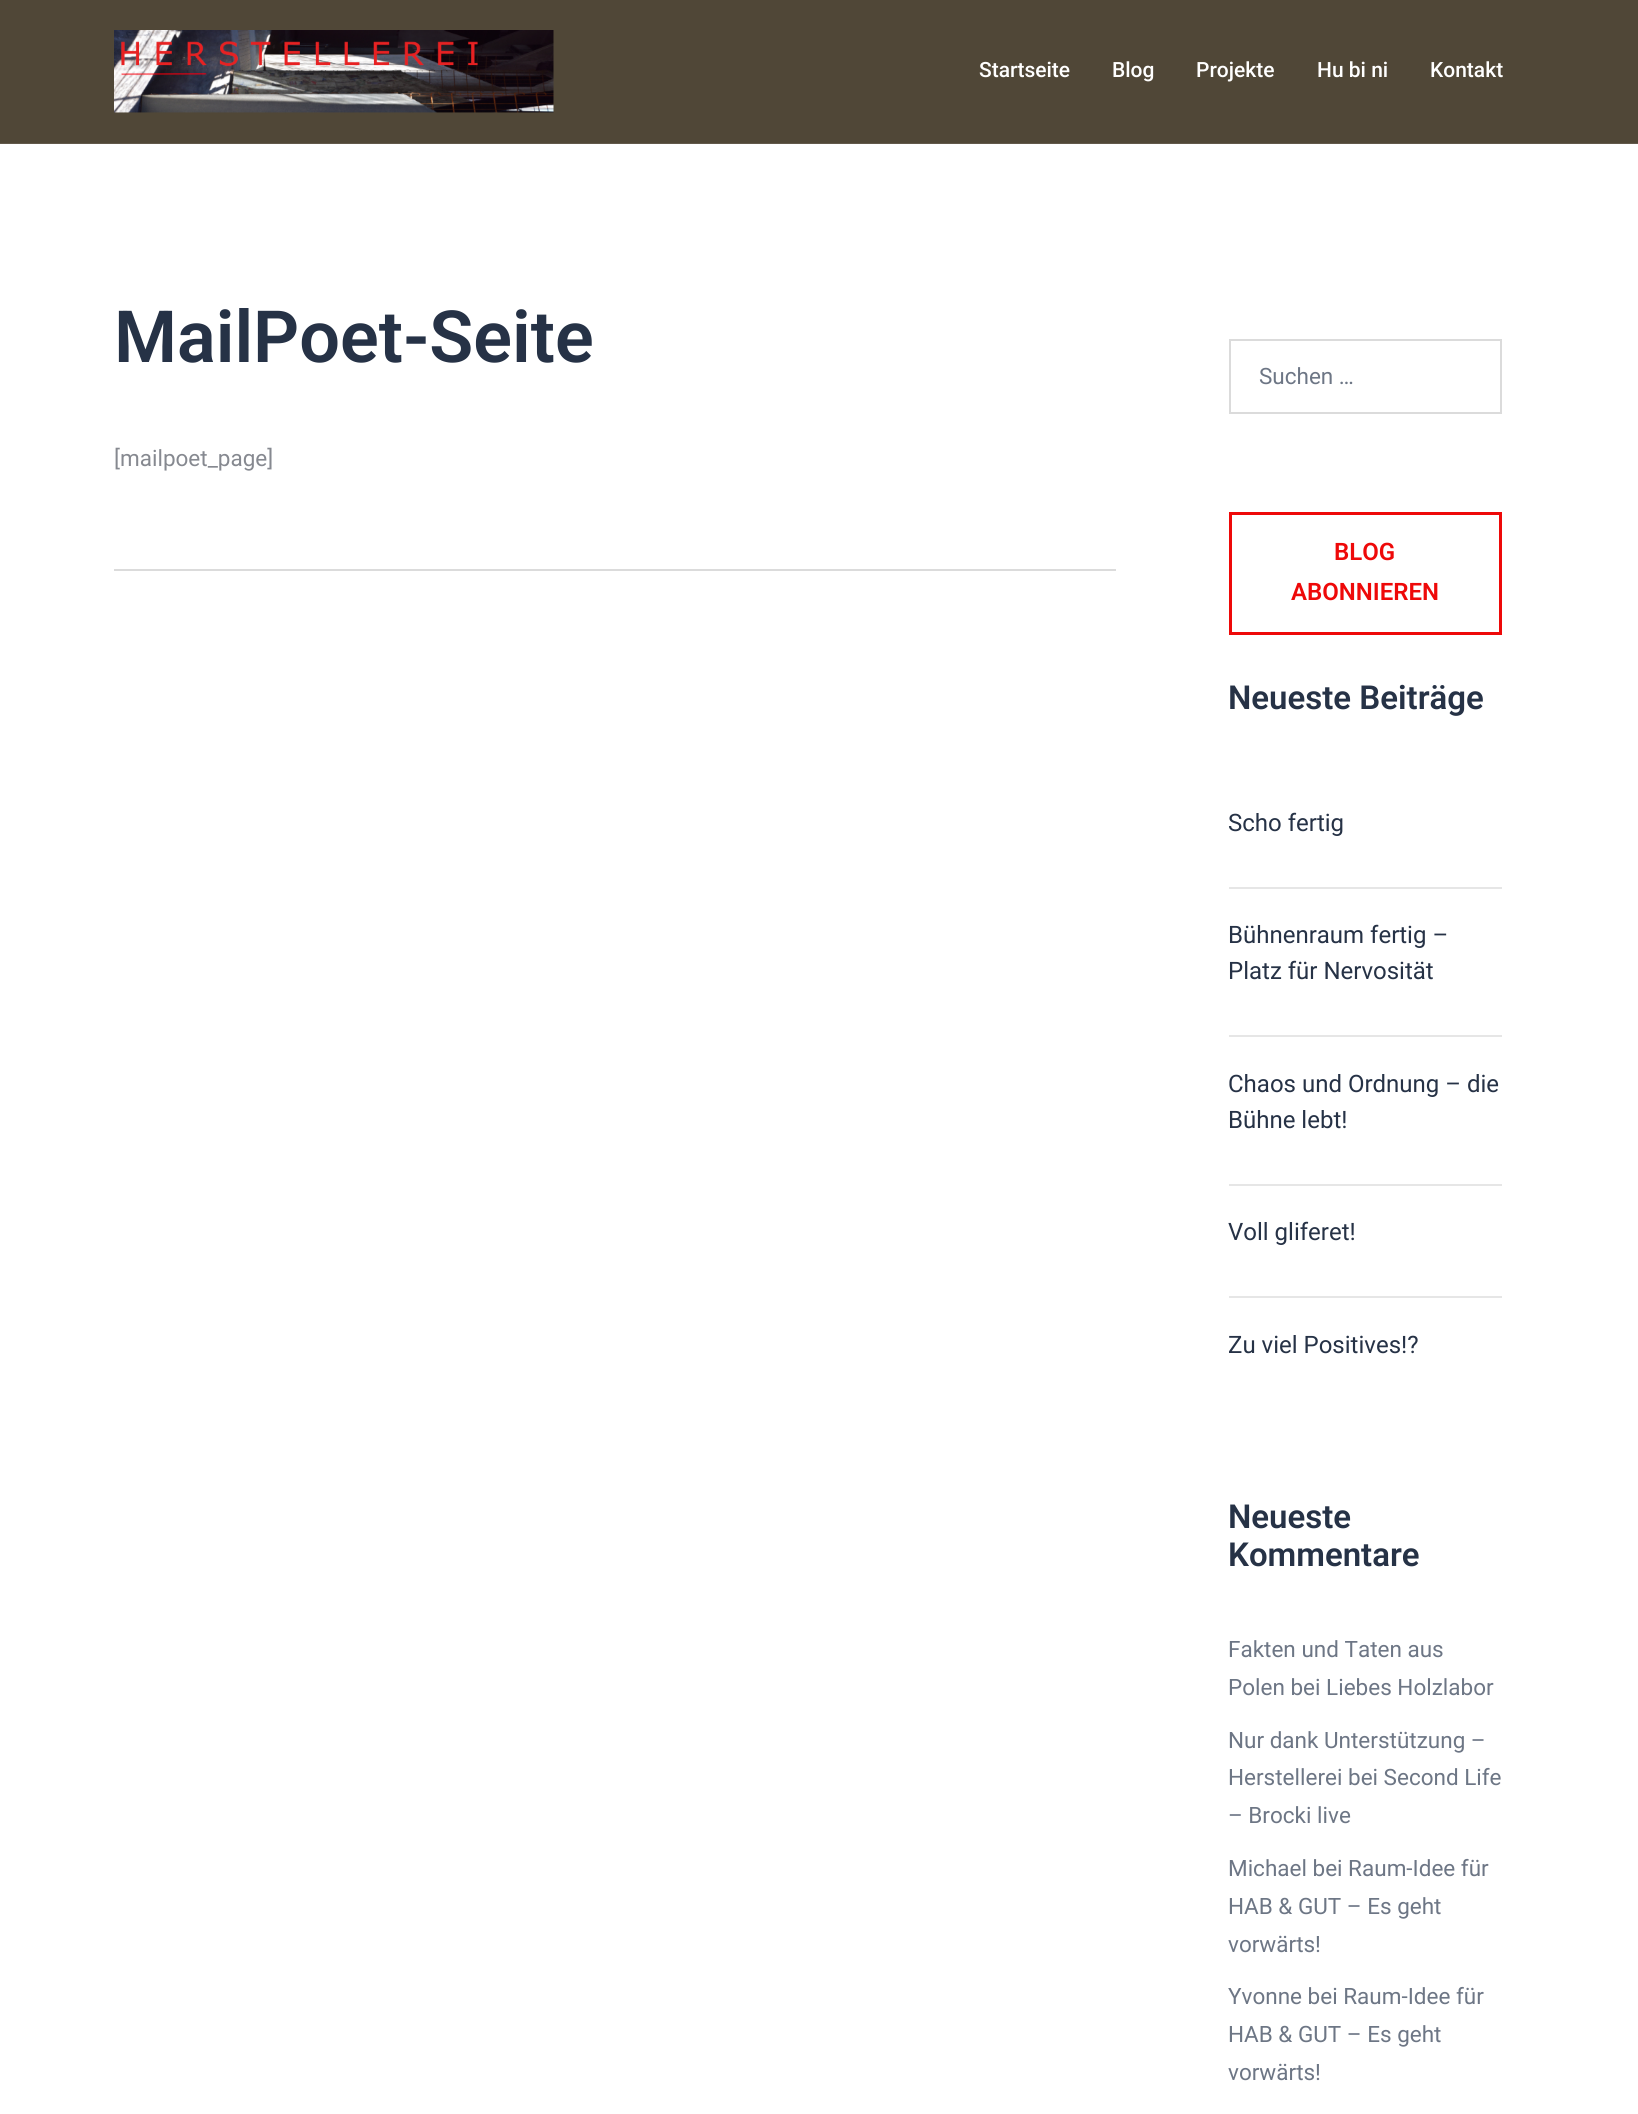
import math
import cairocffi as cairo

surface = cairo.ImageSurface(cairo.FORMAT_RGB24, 1638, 2114)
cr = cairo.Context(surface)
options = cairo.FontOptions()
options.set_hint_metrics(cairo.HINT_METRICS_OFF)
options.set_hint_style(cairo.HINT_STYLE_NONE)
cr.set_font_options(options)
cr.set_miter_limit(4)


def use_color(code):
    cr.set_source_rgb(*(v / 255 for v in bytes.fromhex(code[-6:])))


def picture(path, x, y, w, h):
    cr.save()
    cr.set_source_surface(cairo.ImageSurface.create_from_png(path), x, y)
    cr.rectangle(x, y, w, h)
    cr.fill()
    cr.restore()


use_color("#ffffff")
cr.paint()
use_color("#504737")
cr.rectangle(0, 0, 1638, 143)
cr.fill()
use_color("#62594b")
cr.rectangle(0, 143, 1638, 1)
cr.fill()
picture("img1.png", 114, 30, 440, 83)
cr.select_font_face("Roboto Medium")
cr.set_font_size(21)
use_color("#ffffff")
cr.move_to(979, 77)
cr.show_text("Startseite")
cr.move_to(1112, 77)
cr.show_text("Blog")
cr.move_to(1196, 77)
cr.show_text("Projekte")
cr.move_to(1317, 77)
cr.show_text("Hu bi ni")
cr.move_to(1430, 77)
cr.show_text("Kontakt")
cr.select_font_face("Roboto SemiBold")
cr.set_font_size(72)
use_color("#263246")
cr.move_to(114, 362)
cr.show_text("MailPoet-Seite")
cr.select_font_face("Roboto")
cr.set_font_size(22.5)
use_color("#868990")
cr.move_to(114, 466)
cr.show_text("[mailpoet_page]")
use_color("#dbdbdb")
cr.rectangle(114, 569, 1002, 2)
cr.fill()
cr.rectangle(1230, 340, 271, 73)
cr.stroke()
use_color("#6d7685")
cr.move_to(1259, 384)
cr.show_text("Suchen …")
cr.rectangle(1230.5, 513.5, 270, 120)
use_color("#ee0909")
cr.set_line_width(3)
cr.stroke()
cr.select_font_face("Roboto SemiBold")
cr.set_font_size(24)
cr.move_to(1334, 560)
cr.show_text("BLOG")
cr.move_to(1291, 600)
cr.show_text("ABONNIEREN")
cr.set_font_size(33)
use_color("#263246")
cr.move_to(1228, 709)
cr.show_text("Neueste Beiträge")
use_color("#e6e6e6")
cr.rectangle(1229, 887, 273, 2)
cr.fill()
cr.select_font_face("Roboto")
cr.set_font_size(24)
use_color("#263246")
cr.move_to(1228, 831)
cr.show_text("Scho fertig")
use_color("#e6e6e6")
cr.rectangle(1229, 1035, 273, 2)
cr.fill()
use_color("#263246")
cr.move_to(1228, 943)
cr.show_text("Bühnenraum fertig –")
cr.move_to(1228, 979)
cr.show_text("Platz für Nervosität")
use_color("#e6e6e6")
cr.rectangle(1229, 1184, 273, 2)
cr.fill()
use_color("#263246")
cr.move_to(1228, 1092)
cr.show_text("Chaos und Ordnung – die")
cr.move_to(1228, 1128)
cr.show_text("Bühne lebt!")
use_color("#e6e6e6")
cr.rectangle(1229, 1296, 273, 2)
cr.fill()
use_color("#263246")
cr.move_to(1228, 1240)
cr.show_text("Voll gliferet!")
cr.move_to(1228, 1353)
cr.show_text("Zu viel Positives!?")
cr.select_font_face("Roboto SemiBold")
cr.set_font_size(33)
cr.move_to(1228, 1528)
cr.show_text("Neueste")
cr.move_to(1228, 1566)
cr.show_text("Kommentare")
cr.select_font_face("Roboto")
cr.set_font_size(22.5)
use_color("#6d7685")
cr.move_to(1228, 1657)
cr.show_text("Fakten und Taten aus")
cr.move_to(1228, 1695)
cr.show_text("Polen bei Liebes Holzlabor")
cr.move_to(1228, 1748)
cr.show_text("Nur dank Unterstützung –")
cr.move_to(1228, 1785)
cr.show_text("Herstellerei bei Second Life")
cr.move_to(1228, 1823)
cr.show_text("– Brocki live")
cr.move_to(1228, 1876)
cr.show_text("Michael bei Raum-Idee für")
cr.move_to(1228, 1914)
cr.show_text("HAB & GUT – Es geht")
cr.move_to(1228, 1952)
cr.show_text("vorwärts!")
cr.move_to(1228, 2004)
cr.show_text("Yvonne bei Raum-Idee für")
cr.move_to(1228, 2042)
cr.show_text("HAB & GUT – Es geht")
cr.move_to(1228, 2080)
cr.show_text("vorwärts!")
surface.write_to_png("result.png")
